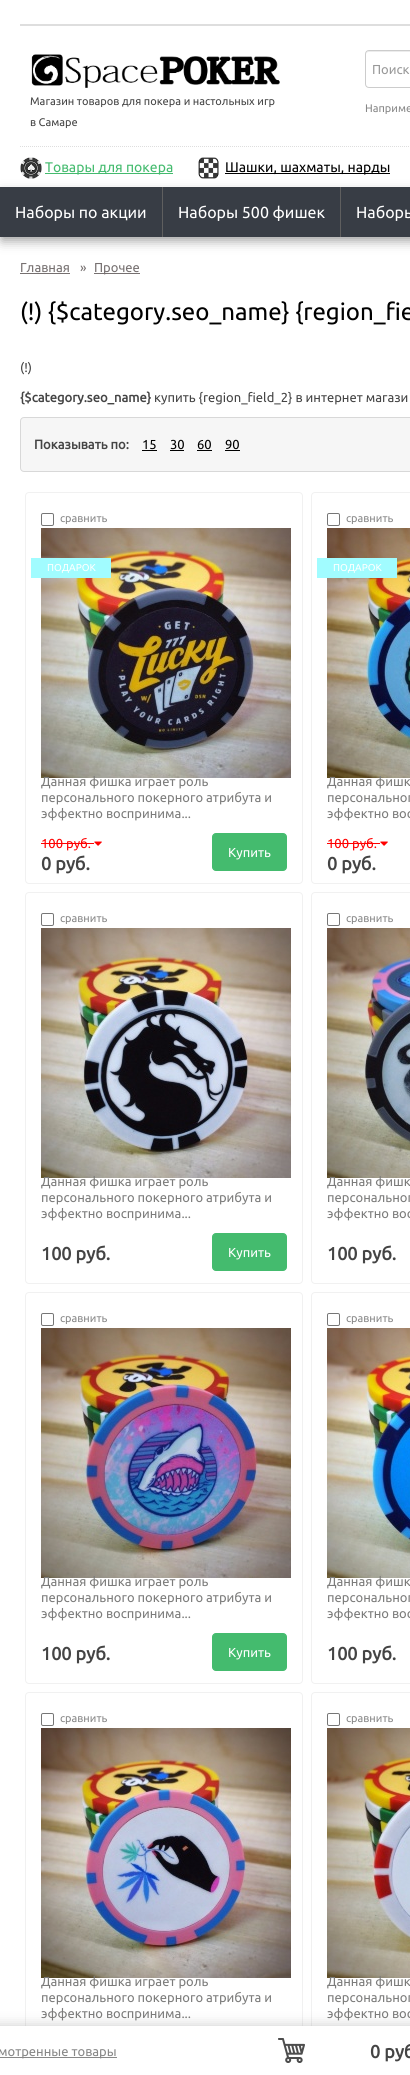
import math
import cairocffi as cairo

surface = cairo.ImageSurface(cairo.FORMAT_RGB24, 410, 2075)
cr = cairo.Context(surface)
options = cairo.FontOptions()
options.set_hint_metrics(cairo.HINT_METRICS_OFF)
options.set_hint_style(cairo.HINT_STYLE_NONE)
cr.set_font_options(options)
cr.set_miter_limit(4)


def use_color(code):
    cr.set_source_rgb(*(v / 255 for v in bytes.fromhex(code[-6:])))


def round_rect(x, y, w, h, r):
    cr.new_sub_path()
    for i, (u, v) in enumerate([(x + w - r, y + h - r), (x + r, y + h - r), (x + r, y + r), (x + w - r, y + r)]):
        cr.arc(u, v, r, i * math.pi / 2, (i + 1) * math.pi / 2)
    cr.close_path()


def shadow(x, y, w, h, r, blur, alpha):
    cr.push_group_with_content(cairo.CONTENT_ALPHA)
    cr.set_operator(cairo.OPERATOR_SOURCE)
    for i in range(15, -16, -2):
        e = blur * i / 6
        if min(w, h) + 2 * e > 0:
            cr.set_source_rgba(0, 0, 0, alpha * math.erfc((i - 1) / 8.5) / 2)
            round_rect(x - e, y - e, w + 2 * e, h + 2 * e, max(0, min(r + e + blur * .6, min(w, h) / 2 + e)))
            cr.fill()
    cr.mask(cr.pop_group())


def picture(path, x, y, w, h):
    cr.save()
    cr.set_source_surface(cairo.ImageSurface.create_from_png(path), x, y)
    cr.rectangle(x, y, w, h)
    cr.fill()
    cr.restore()


use_color("#ffffff")
cr.paint()
use_color("#dedede")
cr.rectangle(20, 24, 390, 2)
cr.fill()
picture("img1.png", 31, 54, 249, 34)
cr.select_font_face("Ubuntu")
cr.set_font_size(11.05)
use_color("#444444")
cr.move_to(30, 105)
cr.show_text("Магазин товаров для покера и настольных игр")
cr.move_to(30, 126)
cr.show_text("в Самаре")
use_color("#ececec")
cr.new_path()
cr.move_to(369, 52)
cr.line_to(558, 52)
cr.line_to(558, 51)
cr.line_to(369, 51)
cr.curve_to(367, 51, 366, 53, 366, 55)
cr.curve_to(366, 53, 367, 52, 369, 52)
cr.close_path()
cr.fill()
cr.new_path()
cr.move_to(369, 50.5)
cr.line_to(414.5, 50.5)
cr.line_to(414.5, 87.5)
cr.line_to(369, 87.5)
cr.curve_to(367, 87.5, 365.5, 86, 365.5, 84)
cr.line_to(365.5, 54)
cr.curve_to(365.5, 52, 367, 50.5, 369, 50.5)
cr.close_path()
use_color("#cccccc")
cr.set_line_width(1)
cr.stroke()
cr.set_font_size(13)
use_color("#999999")
cr.move_to(372, 74)
cr.show_text("Поиск")
cr.set_font_size(11)
use_color("#888888")
cr.move_to(365, 112)
cr.show_text("Наприме")
cr.new_path()
cr.move_to(20, 146.5)
cr.line_to(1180, 146.5)
use_color("#dedede")
cr.set_dash([1, 1])
cr.stroke()
picture("img2.png", 20, 157, 22, 22)
use_color("#44bb6e")
cr.rectangle(45, 173, 128, 1)
cr.fill()
cr.set_font_size(14)
cr.move_to(45, 172)
cr.show_text("Товары для покера")
picture("img3.png", 198, 157, 21, 22)
use_color("#000000")
cr.rectangle(225, 173, 165, 1)
cr.fill()
cr.move_to(225, 172)
cr.show_text("Шашки, шахматы, нарды")
use_color("#323232")
shadow(2, 194, 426, 46, 0, 6, 0.52)
use_color("#383d45")
cr.rectangle(0, 187, 410, 50)
cr.fill()
use_color("#5f5f5f")
cr.rectangle(162, 187, 1, 50)
cr.fill()
cr.set_font_size(16)
use_color("#ffffff")
cr.move_to(15, 218)
cr.show_text("Наборы по акции")
use_color("#5f5f5f")
cr.rectangle(340, 187, 1, 50)
cr.fill()
use_color("#ffffff")
cr.move_to(178, 218)
cr.show_text("Наборы 500 фишек")
cr.move_to(356, 218)
cr.show_text("Наборы")
cr.set_font_size(13)
use_color("#767070")
cr.move_to(20, 272)
cr.show_text("Главная")
cr.rectangle(20, 273, 50, 1)
cr.fill()
cr.move_to(80, 272)
cr.show_text("»")
cr.rectangle(94, 273, 46, 1)
cr.fill()
cr.move_to(94, 272)
cr.show_text("Прочее")
cr.set_font_size(24)
use_color("#000000")
cr.move_to(20, 320)
cr.show_text("(!) {$category.seo_name} {region_fie")
cr.set_font_size(13)
use_color("#444444")
cr.move_to(20, 372)
cr.show_text("(!)")
cr.select_font_face("Ubuntu", cairo.FONT_SLANT_NORMAL, cairo.FONT_WEIGHT_BOLD)
cr.move_to(20, 402)
cr.show_text("{$category.seo_name}")
cr.select_font_face("Ubuntu")
cr.move_to(154, 402)
cr.show_text("купить {region_field_2} в интернет магази")
use_color("#f6f6f6")
round_rect(20.5, 417.5, 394, 54, 3.5)
cr.fill_preserve()
use_color("#d8d8d8")
cr.set_dash([])
cr.stroke()
cr.select_font_face("Ubuntu", cairo.FONT_SLANT_NORMAL, cairo.FONT_WEIGHT_BOLD)
use_color("#444444")
cr.move_to(34, 449)
cr.show_text("Показывать по:")
cr.select_font_face("Ubuntu")
use_color("#000000")
cr.move_to(142, 449)
cr.show_text("15")
cr.rectangle(142, 450, 15, 1)
cr.fill()
cr.move_to(170, 449)
cr.show_text("30")
cr.rectangle(170, 450, 14, 1)
cr.fill()
cr.move_to(197, 449)
cr.show_text("60")
cr.rectangle(197, 450, 15, 1)
cr.fill()
cr.move_to(225, 449)
cr.show_text("90")
cr.rectangle(225, 450, 15, 1)
cr.fill()
round_rect(25.5, 492.5, 277, 391, 3.5)
use_color("#f1f1f1")
cr.stroke()
round_rect(41.5, 513.5, 12, 12, 1.5)
use_color("#767676")
cr.stroke()
cr.set_font_size(11)
use_color("#888888")
cr.move_to(60, 522)
cr.show_text("сравнить")
picture("img4.png", 41, 528, 250, 250)
use_color("#a1fcff")
cr.rectangle(31, 558, 80, 20)
cr.fill()
cr.set_font_size(10)
use_color("#ffffff")
cr.move_to(47, 571)
cr.show_text("ПОДАРОК")
cr.set_font_size(13)
use_color("#7c7c7b")
cr.move_to(41, 786)
cr.show_text("Данная фишка играет роль")
cr.move_to(41, 802)
cr.show_text("персонального покерного атрибута и")
cr.move_to(41, 818)
cr.show_text("эффектно воспринима...")
use_color("#ff0000")
cr.move_to(41, 848)
cr.show_text("100 руб.")
cr.rectangle(41, 843, 53, 1)
cr.fill()
picture("img5.png", 94, 841, 8, 5)
cr.select_font_face("Ubuntu", cairo.FONT_SLANT_NORMAL, cairo.FONT_WEIGHT_BOLD)
cr.set_font_size(18)
use_color("#444444")
cr.move_to(41, 870)
cr.show_text("0 руб.")
use_color("#44bb6e")
round_rect(212.5, 833.5, 74, 37, 3.5)
cr.fill_preserve()
cr.stroke()
cr.select_font_face("Ubuntu")
cr.set_font_size(13)
use_color("#ffffff")
cr.move_to(228, 857)
cr.show_text("Купить")
round_rect(311.5, 492.5, 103, 391, 3.5)
use_color("#f1f1f1")
cr.stroke()
round_rect(327.5, 513.5, 12, 12, 1.5)
use_color("#767676")
cr.stroke()
cr.set_font_size(11)
use_color("#888888")
cr.move_to(346, 522)
cr.show_text("сравнить")
picture("img6.png", 327, 528, 83, 250)
use_color("#a1fcff")
cr.rectangle(317, 558, 80, 20)
cr.fill()
cr.set_font_size(10)
use_color("#ffffff")
cr.move_to(333, 571)
cr.show_text("ПОДАРОК")
cr.set_font_size(13)
use_color("#7c7c7b")
cr.move_to(327, 786)
cr.show_text("Данная фишк")
cr.move_to(327, 802)
cr.show_text("персональног")
cr.move_to(327, 818)
cr.show_text("эффектно вос")
use_color("#ff0000")
cr.move_to(327, 848)
cr.show_text("100 руб.")
cr.rectangle(327, 843, 53, 1)
cr.fill()
picture("img5.png", 380, 841, 8, 5)
cr.select_font_face("Ubuntu", cairo.FONT_SLANT_NORMAL, cairo.FONT_WEIGHT_BOLD)
cr.set_font_size(18)
use_color("#444444")
cr.move_to(327, 870)
cr.show_text("0 руб.")
round_rect(25.5, 892.5, 277, 391, 3.5)
use_color("#f1f1f1")
cr.stroke()
round_rect(41.5, 913.5, 12, 12, 1.5)
use_color("#767676")
cr.stroke()
cr.select_font_face("Ubuntu")
cr.set_font_size(11)
use_color("#888888")
cr.move_to(60, 922)
cr.show_text("сравнить")
picture("img7.png", 41, 928, 250, 250)
cr.set_font_size(13)
use_color("#7c7c7b")
cr.move_to(41, 1186)
cr.show_text("Данная фишка играет роль")
cr.move_to(41, 1202)
cr.show_text("персонального покерного атрибута и")
cr.move_to(41, 1218)
cr.show_text("эффектно воспринима...")
cr.select_font_face("Ubuntu", cairo.FONT_SLANT_NORMAL, cairo.FONT_WEIGHT_BOLD)
cr.set_font_size(18)
use_color("#444444")
cr.move_to(41, 1260)
cr.show_text("100 руб.")
use_color("#44bb6e")
round_rect(212.5, 1233.5, 74, 37, 3.5)
cr.fill_preserve()
cr.stroke()
cr.select_font_face("Ubuntu")
cr.set_font_size(13)
use_color("#ffffff")
cr.move_to(228, 1257)
cr.show_text("Купить")
round_rect(311.5, 892.5, 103, 391, 3.5)
use_color("#f1f1f1")
cr.stroke()
round_rect(327.5, 913.5, 12, 12, 1.5)
use_color("#767676")
cr.stroke()
cr.set_font_size(11)
use_color("#888888")
cr.move_to(346, 922)
cr.show_text("сравнить")
picture("img8.png", 327, 928, 83, 250)
cr.set_font_size(13)
use_color("#7c7c7b")
cr.move_to(327, 1186)
cr.show_text("Данная фишк")
cr.move_to(327, 1202)
cr.show_text("персональног")
cr.move_to(327, 1218)
cr.show_text("эффектно вос")
cr.select_font_face("Ubuntu", cairo.FONT_SLANT_NORMAL, cairo.FONT_WEIGHT_BOLD)
cr.set_font_size(18)
use_color("#444444")
cr.move_to(327, 1260)
cr.show_text("100 руб.")
round_rect(25.5, 1292.5, 277, 391, 3.5)
use_color("#f1f1f1")
cr.stroke()
round_rect(41.5, 1313.5, 12, 12, 1.5)
use_color("#767676")
cr.stroke()
cr.select_font_face("Ubuntu")
cr.set_font_size(11)
use_color("#888888")
cr.move_to(60, 1322)
cr.show_text("сравнить")
picture("img9.png", 41, 1328, 250, 250)
cr.set_font_size(13)
use_color("#7c7c7b")
cr.move_to(41, 1586)
cr.show_text("Данная фишка играет роль")
cr.move_to(41, 1602)
cr.show_text("персонального покерного атрибута и")
cr.move_to(41, 1618)
cr.show_text("эффектно воспринима...")
cr.select_font_face("Ubuntu", cairo.FONT_SLANT_NORMAL, cairo.FONT_WEIGHT_BOLD)
cr.set_font_size(18)
use_color("#444444")
cr.move_to(41, 1660)
cr.show_text("100 руб.")
use_color("#44bb6e")
round_rect(212.5, 1633.5, 74, 37, 3.5)
cr.fill_preserve()
cr.stroke()
cr.select_font_face("Ubuntu")
cr.set_font_size(13)
use_color("#ffffff")
cr.move_to(228, 1657)
cr.show_text("Купить")
round_rect(311.5, 1292.5, 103, 391, 3.5)
use_color("#f1f1f1")
cr.stroke()
round_rect(327.5, 1313.5, 12, 12, 1.5)
use_color("#767676")
cr.stroke()
cr.set_font_size(11)
use_color("#888888")
cr.move_to(346, 1322)
cr.show_text("сравнить")
picture("img10.png", 327, 1328, 83, 250)
cr.set_font_size(13)
use_color("#7c7c7b")
cr.move_to(327, 1586)
cr.show_text("Данная фишк")
cr.move_to(327, 1602)
cr.show_text("персональног")
cr.move_to(327, 1618)
cr.show_text("эффектно вос")
cr.select_font_face("Ubuntu", cairo.FONT_SLANT_NORMAL, cairo.FONT_WEIGHT_BOLD)
cr.set_font_size(18)
use_color("#444444")
cr.move_to(327, 1660)
cr.show_text("100 руб.")
round_rect(25.5, 1692.5, 277, 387, 3.5)
use_color("#f1f1f1")
cr.stroke()
round_rect(41.5, 1713.5, 12, 12, 1.5)
use_color("#767676")
cr.stroke()
cr.select_font_face("Ubuntu")
cr.set_font_size(11)
use_color("#888888")
cr.move_to(60, 1722)
cr.show_text("сравнить")
picture("img11.png", 41, 1728, 250, 250)
cr.set_font_size(13)
use_color("#7c7c7b")
cr.move_to(41, 1986)
cr.show_text("Данная фишка играет роль")
cr.move_to(41, 2002)
cr.show_text("персонального покерного атрибута и")
cr.move_to(41, 2018)
cr.show_text("эффектно воспринима...")
round_rect(311.5, 1692.5, 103, 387, 3.5)
use_color("#f1f1f1")
cr.stroke()
round_rect(327.5, 1713.5, 12, 12, 1.5)
use_color("#767676")
cr.stroke()
cr.set_font_size(11)
use_color("#888888")
cr.move_to(346, 1722)
cr.show_text("сравнить")
picture("img12.png", 327, 1728, 83, 250)
cr.set_font_size(13)
use_color("#7c7c7b")
cr.move_to(327, 1986)
cr.show_text("Данная фишк")
cr.move_to(327, 2002)
cr.show_text("персональног")
cr.move_to(327, 2018)
cr.show_text("эффектно вос")
use_color("#323232")
shadow(-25, 2024, 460, 50, 7, 6, 0.2)
use_color("#ffffff")
cr.rectangle(0, 2026, 410, 49)
cr.fill()
use_color("#888888")
cr.rectangle(0, 2057, 117, 1)
cr.fill()
cr.move_to(-2, 2056)
cr.show_text("мотренные товары")
picture("img13.png", 278, 2038, 27, 25)
cr.select_font_face("Ubuntu", cairo.FONT_SLANT_NORMAL, cairo.FONT_WEIGHT_BOLD)
cr.set_font_size(18)
use_color("#444444")
cr.move_to(370, 2058)
cr.show_text("0 руб")
surface.write_to_png("result.png")
